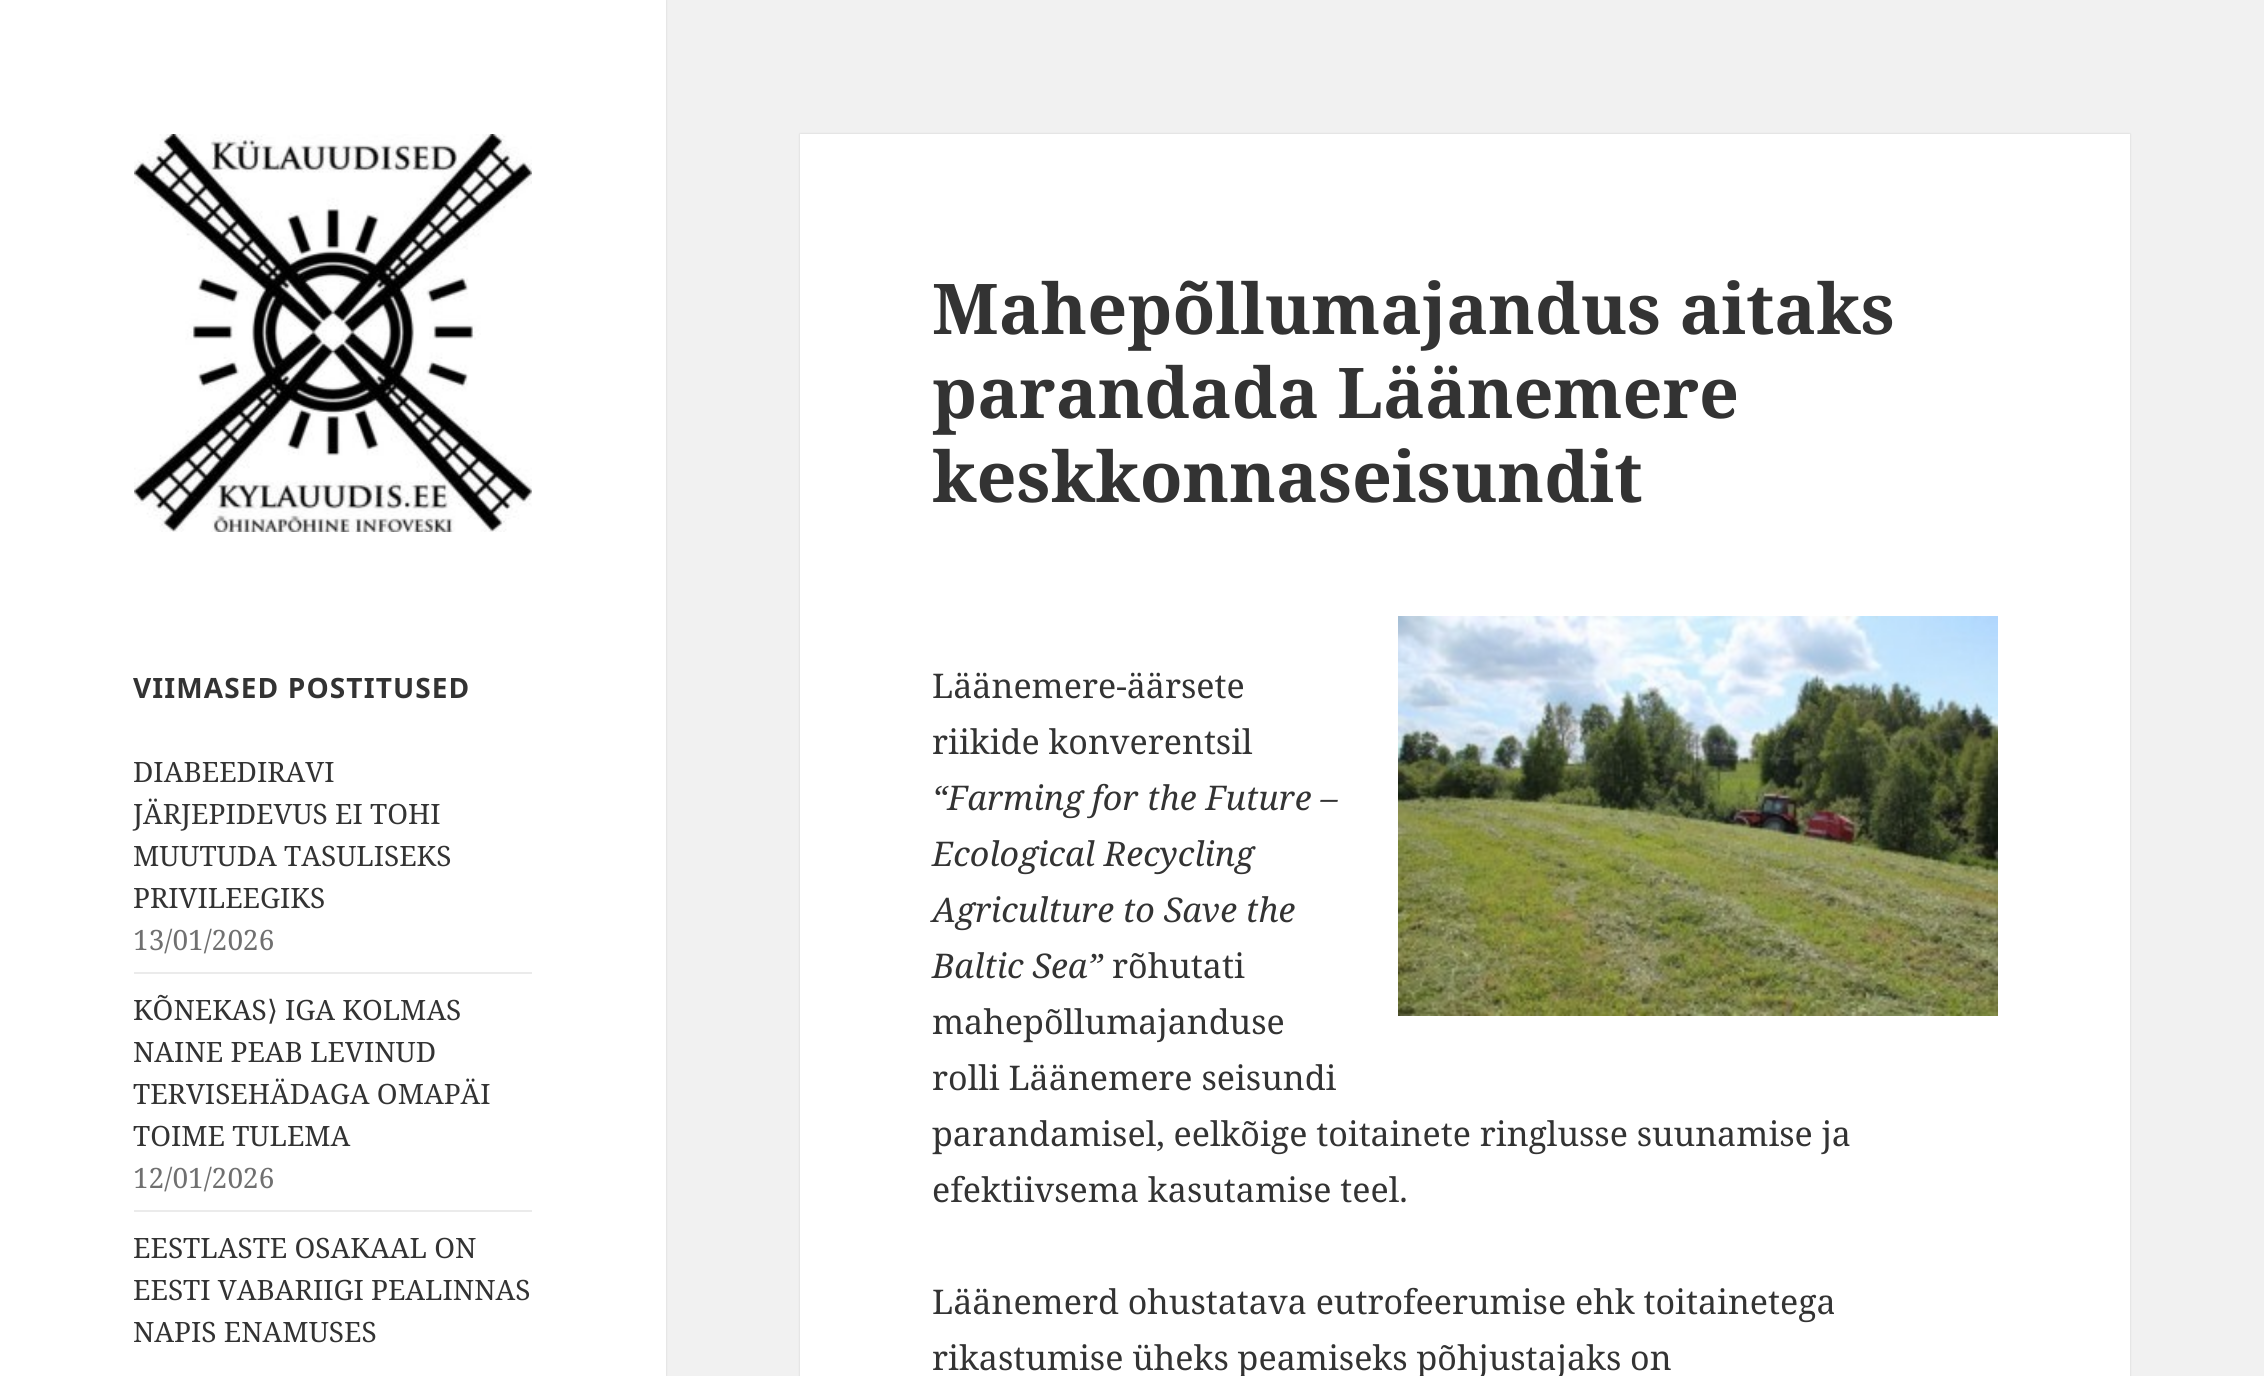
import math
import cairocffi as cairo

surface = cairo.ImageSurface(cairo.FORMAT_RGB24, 2264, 1376)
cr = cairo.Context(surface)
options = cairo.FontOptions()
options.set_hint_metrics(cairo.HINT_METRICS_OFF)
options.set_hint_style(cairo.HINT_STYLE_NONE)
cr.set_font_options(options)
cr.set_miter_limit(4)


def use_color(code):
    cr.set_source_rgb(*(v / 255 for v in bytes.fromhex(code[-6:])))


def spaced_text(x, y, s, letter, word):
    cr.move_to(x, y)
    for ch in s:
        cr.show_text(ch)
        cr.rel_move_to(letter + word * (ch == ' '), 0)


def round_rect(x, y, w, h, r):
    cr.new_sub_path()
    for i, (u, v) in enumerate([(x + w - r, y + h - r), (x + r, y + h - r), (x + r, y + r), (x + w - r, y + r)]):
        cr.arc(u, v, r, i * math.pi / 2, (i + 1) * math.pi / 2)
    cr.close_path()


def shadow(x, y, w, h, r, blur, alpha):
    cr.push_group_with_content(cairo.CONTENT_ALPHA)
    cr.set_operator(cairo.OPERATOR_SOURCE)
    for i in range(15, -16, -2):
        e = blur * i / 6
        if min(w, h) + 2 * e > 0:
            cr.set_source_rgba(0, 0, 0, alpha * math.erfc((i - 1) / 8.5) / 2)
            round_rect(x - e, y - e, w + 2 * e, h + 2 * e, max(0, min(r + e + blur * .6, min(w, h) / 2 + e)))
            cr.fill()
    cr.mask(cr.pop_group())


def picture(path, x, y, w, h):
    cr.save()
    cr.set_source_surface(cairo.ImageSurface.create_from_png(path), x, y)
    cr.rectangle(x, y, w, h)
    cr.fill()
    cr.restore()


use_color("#f1f1f1")
cr.paint()
use_color("#000000")
shadow(0, 0, 666, 1376, 0, 1, 0.15)
use_color("#ffffff")
cr.rectangle(0, 0, 666, 1376)
cr.fill()
picture("img1.png", 134, 134, 398, 398)
cr.select_font_face("Noto Sans", cairo.FONT_SLANT_NORMAL, cairo.FONT_WEIGHT_BOLD)
cr.set_font_size(28)
use_color("#333333")
spaced_text(133, 698, "VIIMASED POSTITUSED", 1.1, 0)
cr.select_font_face("Noto Serif")
cr.move_to(133, 782)
cr.show_text("DIABEEDIRAVI")
cr.move_to(133, 824)
cr.show_text("JÄRJEPIDEVUS EI TOHI")
cr.move_to(133, 866)
cr.show_text("MUUTUDA TASULISEKS")
cr.move_to(133, 908)
cr.show_text("PRIVILEEGIKS")
use_color("#707070")
cr.move_to(133, 950)
cr.show_text("13/01/2026")
use_color("#ebebeb")
cr.rectangle(134, 972, 398, 2)
cr.fill()
use_color("#333333")
cr.move_to(133, 1020)
cr.show_text("KÕNEKAS")
cr.select_font_face("DejaVu Sans")
cr.move_to(267, 1020)
cr.show_text("⟩")
cr.select_font_face("Noto Serif")
cr.move_to(285, 1020)
cr.show_text("IGA KOLMAS")
cr.move_to(133, 1062)
cr.show_text("NAINE PEAB LEVINUD")
cr.move_to(133, 1104)
cr.show_text("TERVISEHÄDAGA OMAPÄI")
cr.move_to(133, 1146)
cr.show_text("TOIME TULEMA")
use_color("#707070")
cr.move_to(133, 1188)
cr.show_text("12/01/2026")
use_color("#ebebeb")
cr.rectangle(134, 1210, 398, 2)
cr.fill()
use_color("#333333")
cr.move_to(133, 1258)
cr.show_text("EESTLASTE OSAKAAL ON")
cr.move_to(133, 1300)
cr.show_text("EESTI VABARIIGI PEALINNAS")
cr.move_to(133, 1342)
cr.show_text("NAPIS ENAMUSES")
use_color("#000000")
shadow(800, 134, 1330, 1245, 0, 1, 0.15)
use_color("#ffffff")
cr.rectangle(800, 134, 1330, 1242)
cr.fill()
cr.select_font_face("Noto Serif", cairo.FONT_SLANT_NORMAL, cairo.FONT_WEIGHT_BOLD)
cr.set_font_size(70)
use_color("#333333")
cr.move_to(932, 334)
cr.show_text("Mahepõllumajandus aitaks")
cr.move_to(932, 418)
cr.show_text("parandada Läänemere")
cr.move_to(932, 502)
cr.show_text("keskkonnaseisundit")
picture("img2.png", 1398, 616, 600, 400)
cr.select_font_face("Noto Serif")
cr.set_font_size(34)
cr.move_to(932, 698)
cr.show_text("Läänemere-äärsete")
cr.move_to(932, 754)
cr.show_text("riikide konverentsil")
cr.select_font_face("Noto Serif", cairo.FONT_SLANT_ITALIC)
cr.move_to(932, 810)
cr.show_text("“Farming for the Future –")
cr.move_to(932, 866)
cr.show_text("Ecological Recycling")
cr.move_to(932, 922)
cr.show_text("Agriculture to Save the")
cr.move_to(932, 978)
cr.show_text("Baltic Sea”")
cr.select_font_face("Noto Serif")
cr.move_to(1112, 978)
cr.show_text("rõhutati")
cr.move_to(932, 1034)
cr.show_text("mahepõllumajanduse")
cr.move_to(932, 1090)
cr.show_text("rolli Läänemere seisundi")
cr.move_to(932, 1146)
cr.show_text("parandamisel, eelkõige toitainete ringlusse suunamise ja")
cr.move_to(932, 1202)
cr.show_text("efektiivsema kasutamise teel.")
cr.move_to(932, 1314)
cr.show_text("Läänemerd ohustatava eutrofeerumise ehk toitainetega")
cr.move_to(932, 1370)
cr.show_text("rikastumise üheks peamiseks põhjustajaks on")
surface.write_to_png("result.png")
